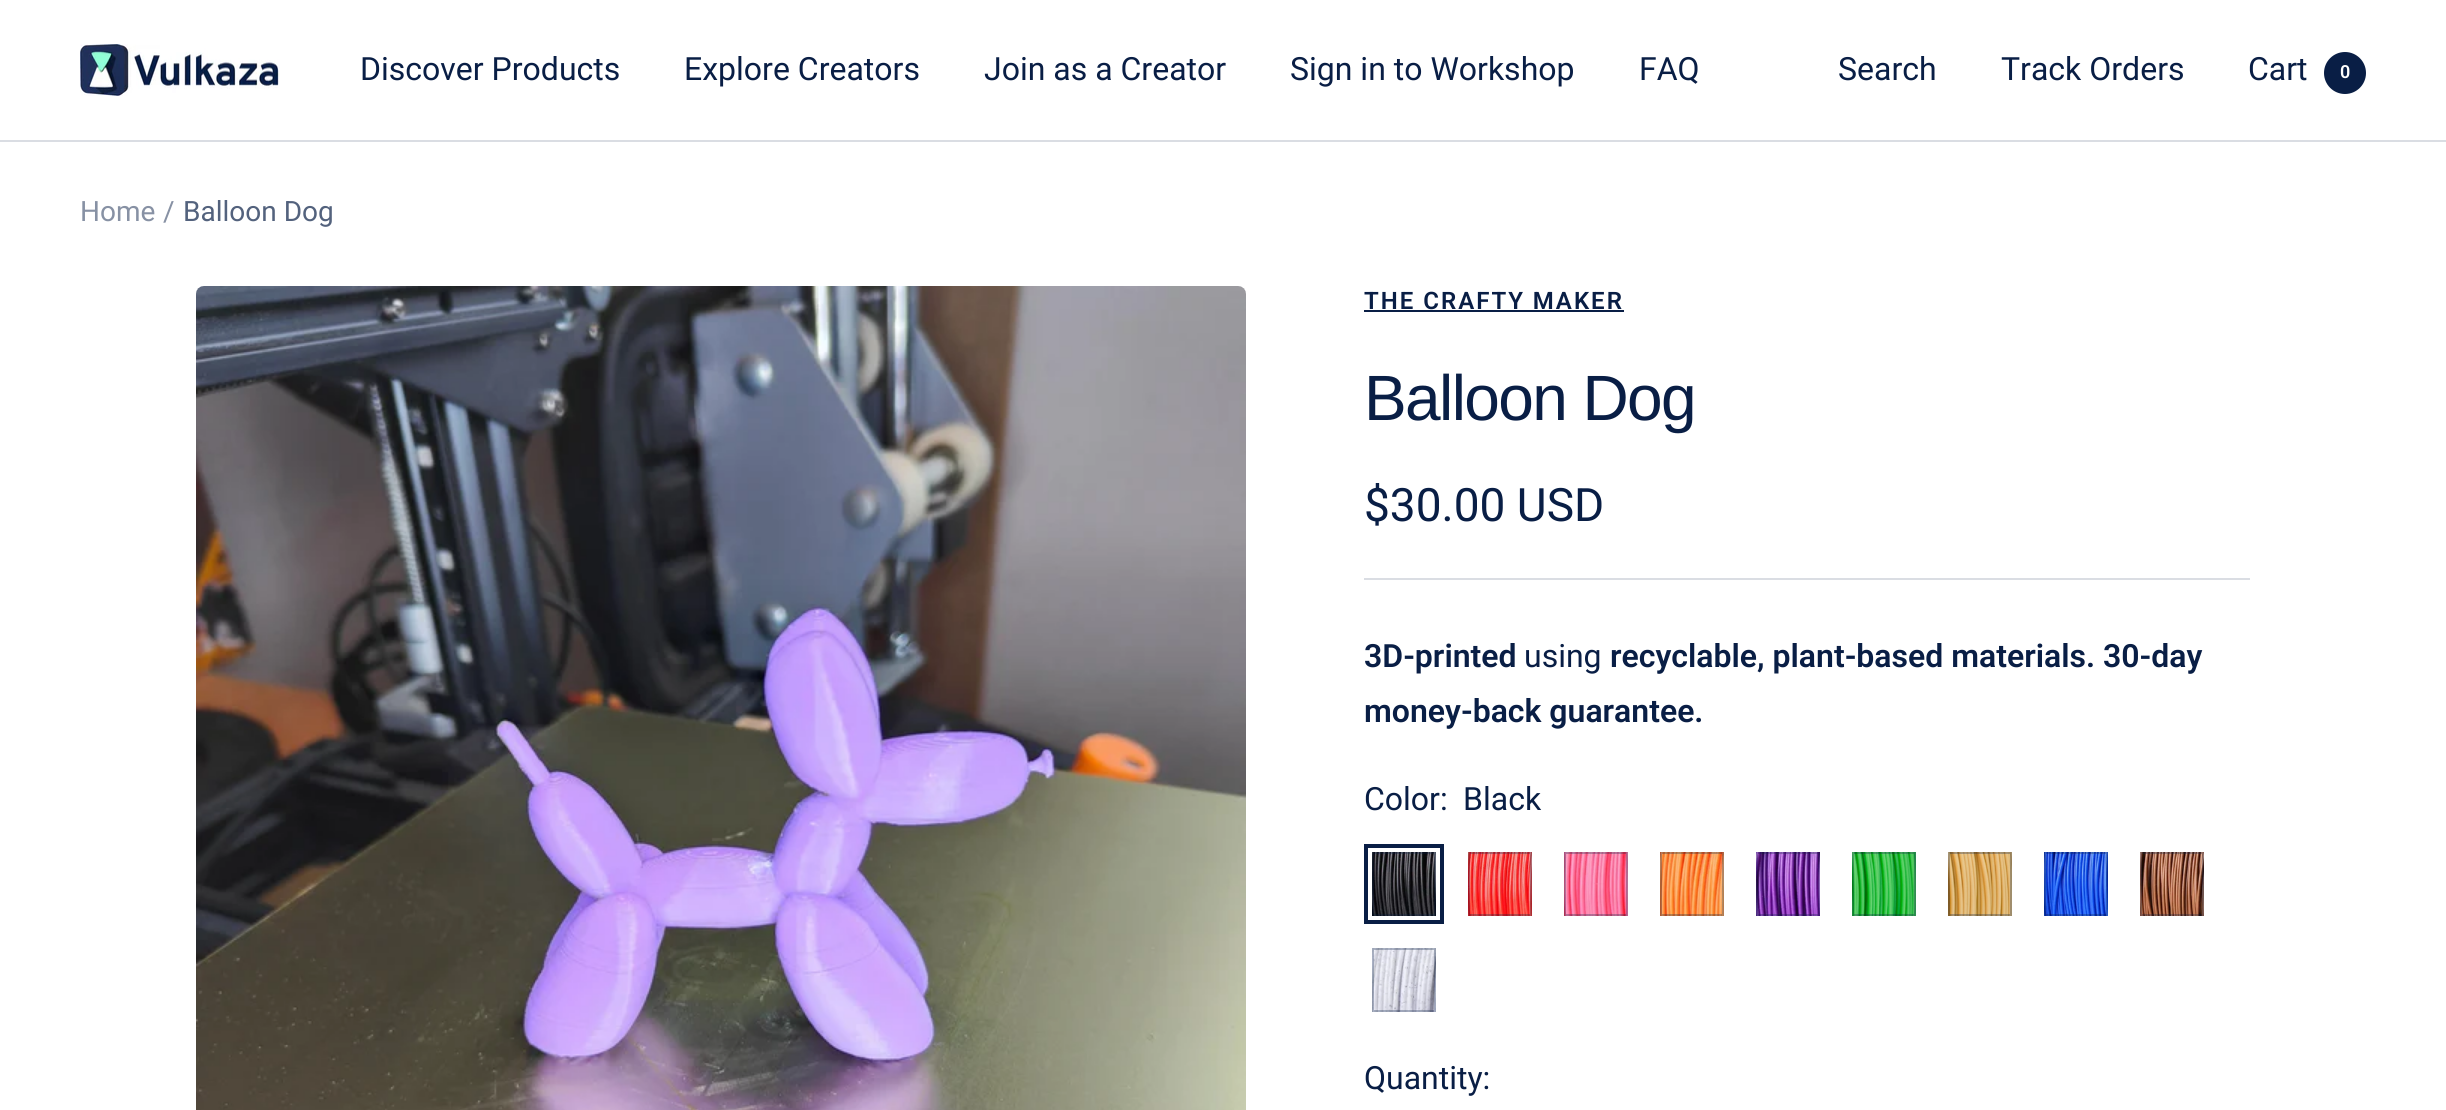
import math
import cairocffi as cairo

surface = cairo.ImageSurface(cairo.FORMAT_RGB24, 2446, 1110)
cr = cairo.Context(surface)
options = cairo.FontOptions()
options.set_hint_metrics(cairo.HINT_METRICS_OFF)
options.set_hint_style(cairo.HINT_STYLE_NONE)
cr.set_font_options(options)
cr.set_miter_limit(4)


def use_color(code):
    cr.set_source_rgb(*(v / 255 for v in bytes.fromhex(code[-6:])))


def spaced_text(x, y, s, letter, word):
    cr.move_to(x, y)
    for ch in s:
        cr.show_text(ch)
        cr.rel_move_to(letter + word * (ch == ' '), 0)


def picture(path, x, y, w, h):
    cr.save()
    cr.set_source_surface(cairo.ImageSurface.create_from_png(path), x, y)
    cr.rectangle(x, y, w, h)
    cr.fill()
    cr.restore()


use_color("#ffffff")
cr.paint()
use_color("#dadde3")
cr.rectangle(0, 140, 2446, 2)
cr.fill()
picture("img1.png", 80, 44, 200, 52)
cr.select_font_face("Roboto")
cr.set_font_size(32)
use_color("#091e45")
cr.move_to(360, 80)
cr.show_text("Discover Products")
cr.move_to(684, 80)
cr.show_text("Explore Creators")
cr.move_to(984, 80)
cr.show_text("Join as a Creator")
cr.move_to(1290, 80)
cr.show_text("Sign in to Workshop")
cr.move_to(1639, 80)
cr.show_text("FAQ")
cr.move_to(1838, 80)
cr.show_text("Search")
cr.move_to(2001, 80)
cr.show_text("Track Orders")
cr.move_to(2248, 80)
cr.show_text("Cart")
cr.new_path()
cr.arc(2345, 73, 21, 0, 2 * math.pi)
cr.fill()
cr.select_font_face("Roboto SemiBold")
cr.set_font_size(18)
use_color("#ffffff")
cr.move_to(2340, 78)
cr.show_text("0")
cr.select_font_face("Roboto")
cr.set_font_size(28)
use_color("#8791a4")
cr.move_to(80, 221)
cr.show_text("Home")
cr.move_to(163, 221)
cr.show_text("/")
use_color("#53627d")
cr.move_to(183, 221)
cr.show_text("Balloon Dog")
picture("img2.png", 196, 286, 1050, 824)
use_color("#dadde3")
cr.rectangle(1364, 578, 886, 2)
cr.fill()
cr.select_font_face("Roboto SemiBold")
cr.set_font_size(24)
use_color("#091e45")
spaced_text(1364, 309, "THE CRAFTY MAKER", 2, 0)
cr.rectangle(1364, 310, 260, 2)
cr.fill()
cr.select_font_face("Liberation Sans")
cr.set_font_size(64)
spaced_text(1364, 420, "Balloon Dog", -1.6, 0)
cr.select_font_face("Roboto")
cr.set_font_size(46)
cr.move_to(1364, 521)
cr.show_text("$30.00 USD")
cr.select_font_face("Roboto SemiBold")
cr.set_font_size(32)
cr.move_to(1364, 667)
cr.show_text("3D-printed")
cr.select_font_face("Roboto")
cr.move_to(1524, 667)
cr.show_text("using")
cr.select_font_face("Roboto SemiBold")
cr.move_to(1610, 667)
cr.show_text("recyclable, plant-based materials. 30-day")
cr.move_to(1364, 722)
cr.show_text("money-back guarantee.")
cr.select_font_face("Roboto")
cr.move_to(1364, 810)
cr.show_text("Color:")
cr.move_to(1463, 810)
cr.show_text("Black")
picture("img3.png", 1372, 852, 64, 64)
cr.rectangle(1373, 853, 62, 62)
cr.set_source_rgba(0.035, 0.118, 0.271, 0.3)
cr.stroke()
cr.rectangle(1366, 846, 76, 76)
use_color("#091e45")
cr.set_line_width(4)
cr.stroke()
picture("img4.png", 1468, 852, 64, 64)
cr.rectangle(1469, 853, 62, 62)
cr.set_source_rgba(0.035, 0.118, 0.271, 0.3)
cr.set_line_width(2)
cr.stroke()
picture("img5.png", 1564, 852, 64, 64)
cr.rectangle(1565, 853, 62, 62)
cr.stroke()
picture("img6.png", 1660, 852, 64, 64)
cr.rectangle(1661, 853, 62, 62)
cr.stroke()
picture("img7.png", 1756, 852, 64, 64)
cr.rectangle(1757, 853, 62, 62)
cr.stroke()
picture("img8.png", 1852, 852, 64, 64)
cr.rectangle(1853, 853, 62, 62)
cr.stroke()
picture("img9.png", 1948, 852, 64, 64)
cr.rectangle(1949, 853, 62, 62)
cr.stroke()
picture("img10.png", 2044, 852, 64, 64)
cr.rectangle(2045, 853, 62, 62)
cr.stroke()
picture("img11.png", 2140, 852, 64, 64)
cr.rectangle(2141, 853, 62, 62)
cr.stroke()
picture("img12.png", 1372, 948, 64, 64)
cr.rectangle(1373, 949, 62, 62)
cr.stroke()
use_color("#091e45")
cr.move_to(1364, 1089)
cr.show_text("Quantity:")
surface.write_to_png("result.png")
